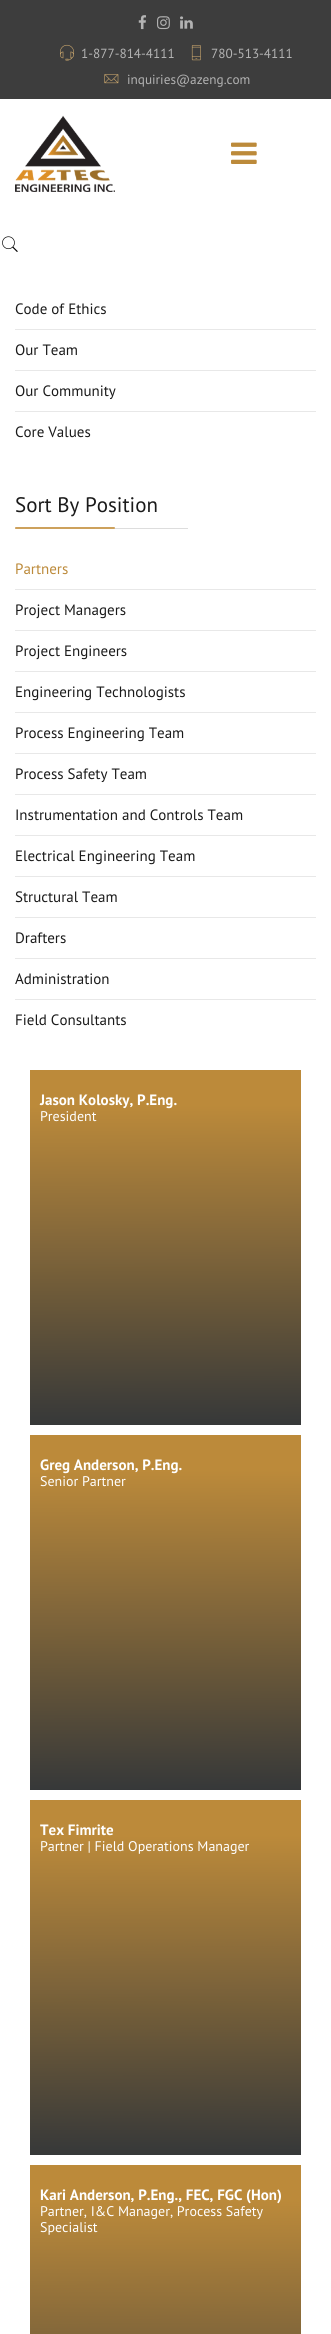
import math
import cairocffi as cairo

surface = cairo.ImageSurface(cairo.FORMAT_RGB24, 331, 2334)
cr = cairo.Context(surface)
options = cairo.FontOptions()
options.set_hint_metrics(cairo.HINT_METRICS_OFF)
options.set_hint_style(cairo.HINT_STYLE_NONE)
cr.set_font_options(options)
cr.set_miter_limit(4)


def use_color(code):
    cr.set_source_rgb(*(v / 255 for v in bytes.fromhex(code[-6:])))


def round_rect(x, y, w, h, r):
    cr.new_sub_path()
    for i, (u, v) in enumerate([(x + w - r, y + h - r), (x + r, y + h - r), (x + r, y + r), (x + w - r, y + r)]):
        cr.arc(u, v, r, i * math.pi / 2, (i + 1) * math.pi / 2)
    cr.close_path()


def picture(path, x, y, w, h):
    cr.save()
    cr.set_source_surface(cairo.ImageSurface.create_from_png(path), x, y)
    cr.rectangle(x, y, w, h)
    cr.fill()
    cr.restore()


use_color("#ffffff")
cr.paint()
use_color("#3d3d3d")
cr.rectangle(0, 0, 331, 99)
cr.fill()
picture("img1.png", 138, 15, 8, 15)
picture("img2.png", 157, 16, 13, 14)
picture("img3.png", 180, 16, 13, 13)
picture("img4.png", 60, 44, 14, 17)
cr.select_font_face("PT Sans")
cr.set_font_size(13.25)
use_color("#b3b3b3")
cr.move_to(81, 58)
cr.show_text("1-877-814-4111")
picture("img5.png", 191, 45, 10, 16)
cr.move_to(211, 58)
cr.show_text("780-513-4111")
picture("img6.png", 104, 74, 15, 10)
cr.move_to(127, 84)
cr.show_text("inquiries@azeng.com")
picture("img7.png", 15, 115, 100, 77)
picture("img8.png", 231, 142, 26, 22)
picture("img9.png", 2, 236, 16, 16)
use_color("#e8e8e8")
cr.rectangle(15, 329, 301, 1)
cr.fill()
cr.set_font_size(15)
use_color("#1a1a1a")
cr.move_to(15, 314)
cr.show_text("Code of Ethics")
use_color("#e8e8e8")
cr.rectangle(15, 370, 301, 1)
cr.fill()
use_color("#1a1a1a")
cr.move_to(15, 355)
cr.show_text("Our Team")
use_color("#e8e8e8")
cr.rectangle(15, 411, 301, 1)
cr.fill()
use_color("#1a1a1a")
cr.move_to(15, 396)
cr.show_text("Our Community")
cr.move_to(15, 437)
cr.show_text("Core Values")
use_color("#dddddd")
cr.rectangle(15, 528, 173, 1)
cr.fill()
cr.set_font_size(21)
use_color("#1a1a1a")
cr.move_to(15, 512)
cr.show_text("Sort By Position")
use_color("#cda15c")
round_rect(15, 527, 100, 2, 1)
cr.fill()
use_color("#e8e8e8")
cr.rectangle(15, 589, 301, 1)
cr.fill()
cr.set_font_size(15)
use_color("#bc8a3a")
cr.move_to(15, 574)
cr.show_text("Partners")
use_color("#e8e8e8")
cr.rectangle(15, 630, 301, 1)
cr.fill()
use_color("#1a1a1a")
cr.move_to(15, 615)
cr.show_text("Project Managers")
use_color("#e8e8e8")
cr.rectangle(15, 671, 301, 1)
cr.fill()
use_color("#1a1a1a")
cr.move_to(15, 656)
cr.show_text("Project Engineers")
use_color("#e8e8e8")
cr.rectangle(15, 712, 301, 1)
cr.fill()
use_color("#1a1a1a")
cr.move_to(15, 697)
cr.show_text("Engineering Technologists")
use_color("#e8e8e8")
cr.rectangle(15, 753, 301, 1)
cr.fill()
use_color("#1a1a1a")
cr.move_to(15, 738)
cr.show_text("Process Engineering Team")
use_color("#e8e8e8")
cr.rectangle(15, 794, 301, 1)
cr.fill()
use_color("#1a1a1a")
cr.move_to(15, 779)
cr.show_text("Process Safety Team")
use_color("#e8e8e8")
cr.rectangle(15, 835, 301, 1)
cr.fill()
use_color("#1a1a1a")
cr.move_to(15, 820)
cr.show_text("Instrumentation and Controls Team")
use_color("#e8e8e8")
cr.rectangle(15, 876, 301, 1)
cr.fill()
use_color("#1a1a1a")
cr.move_to(15, 861)
cr.show_text("Electrical Engineering Team")
use_color("#e8e8e8")
cr.rectangle(15, 917, 301, 1)
cr.fill()
use_color("#1a1a1a")
cr.move_to(15, 902)
cr.show_text("Structural Team")
use_color("#e8e8e8")
cr.rectangle(15, 958, 301, 1)
cr.fill()
use_color("#1a1a1a")
cr.move_to(15, 943)
cr.show_text("Drafters")
use_color("#e8e8e8")
cr.rectangle(15, 999, 301, 1)
cr.fill()
use_color("#1a1a1a")
cr.move_to(15, 984)
cr.show_text("Administration")
cr.move_to(15, 1025)
cr.show_text("Field Consultants")
gradient = cairo.LinearGradient(165, 1070, 166, 1425)
gradient.add_color_stop_rgba(0.1, 0.737, 0.541, 0.227, 1)
gradient.add_color_stop_rgba(1, 0.212, 0.22, 0.224, 1)
cr.set_source(gradient)
cr.rectangle(30, 1070, 271, 355)
cr.fill()
cr.select_font_face("PT Sans", cairo.FONT_SLANT_NORMAL, cairo.FONT_WEIGHT_BOLD)
use_color("#ffffff")
cr.move_to(40, 1105)
cr.show_text("Jason Kolosky, P.Eng.")
cr.select_font_face("PT Sans")
cr.set_font_size(14)
cr.move_to(40, 1121)
cr.show_text("President")
gradient = cairo.LinearGradient(165, 1435, 166, 1790)
gradient.add_color_stop_rgba(0.1, 0.737, 0.541, 0.227, 1)
gradient.add_color_stop_rgba(1, 0.212, 0.22, 0.224, 1)
cr.set_source(gradient)
cr.rectangle(30, 1435, 271, 355)
cr.fill()
cr.select_font_face("PT Sans", cairo.FONT_SLANT_NORMAL, cairo.FONT_WEIGHT_BOLD)
cr.set_font_size(15)
use_color("#ffffff")
cr.move_to(40, 1470)
cr.show_text("Greg Anderson, P.Eng.")
cr.select_font_face("PT Sans")
cr.set_font_size(14)
cr.move_to(40, 1486)
cr.show_text("Senior Partner")
gradient = cairo.LinearGradient(165, 1800, 166, 2155)
gradient.add_color_stop_rgba(0.1, 0.737, 0.541, 0.227, 1)
gradient.add_color_stop_rgba(1, 0.212, 0.22, 0.224, 1)
cr.set_source(gradient)
cr.rectangle(30, 1800, 271, 355)
cr.fill()
cr.select_font_face("PT Sans", cairo.FONT_SLANT_NORMAL, cairo.FONT_WEIGHT_BOLD)
cr.set_font_size(15)
use_color("#ffffff")
cr.move_to(40, 1835)
cr.show_text("Tex Fimrite")
cr.select_font_face("PT Sans")
cr.set_font_size(14)
cr.move_to(40, 1851)
cr.show_text("Partner | Field Operations Manager")
gradient = cairo.LinearGradient(165, 2165, 166, 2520)
gradient.add_color_stop_rgba(0.1, 0.737, 0.541, 0.227, 1)
gradient.add_color_stop_rgba(1, 0.212, 0.22, 0.224, 1)
cr.set_source(gradient)
cr.rectangle(30, 2165, 271, 169)
cr.fill()
cr.select_font_face("PT Sans", cairo.FONT_SLANT_NORMAL, cairo.FONT_WEIGHT_BOLD)
cr.set_font_size(15)
use_color("#ffffff")
cr.move_to(40, 2200)
cr.show_text("Kari Anderson, P.Eng., FEC, FGC (Hon)")
cr.select_font_face("PT Sans")
cr.set_font_size(14)
cr.move_to(40, 2216)
cr.show_text("Partner, I&C Manager, Process Safety")
cr.move_to(40, 2232)
cr.show_text("Specialist")
surface.write_to_png("result.png")
